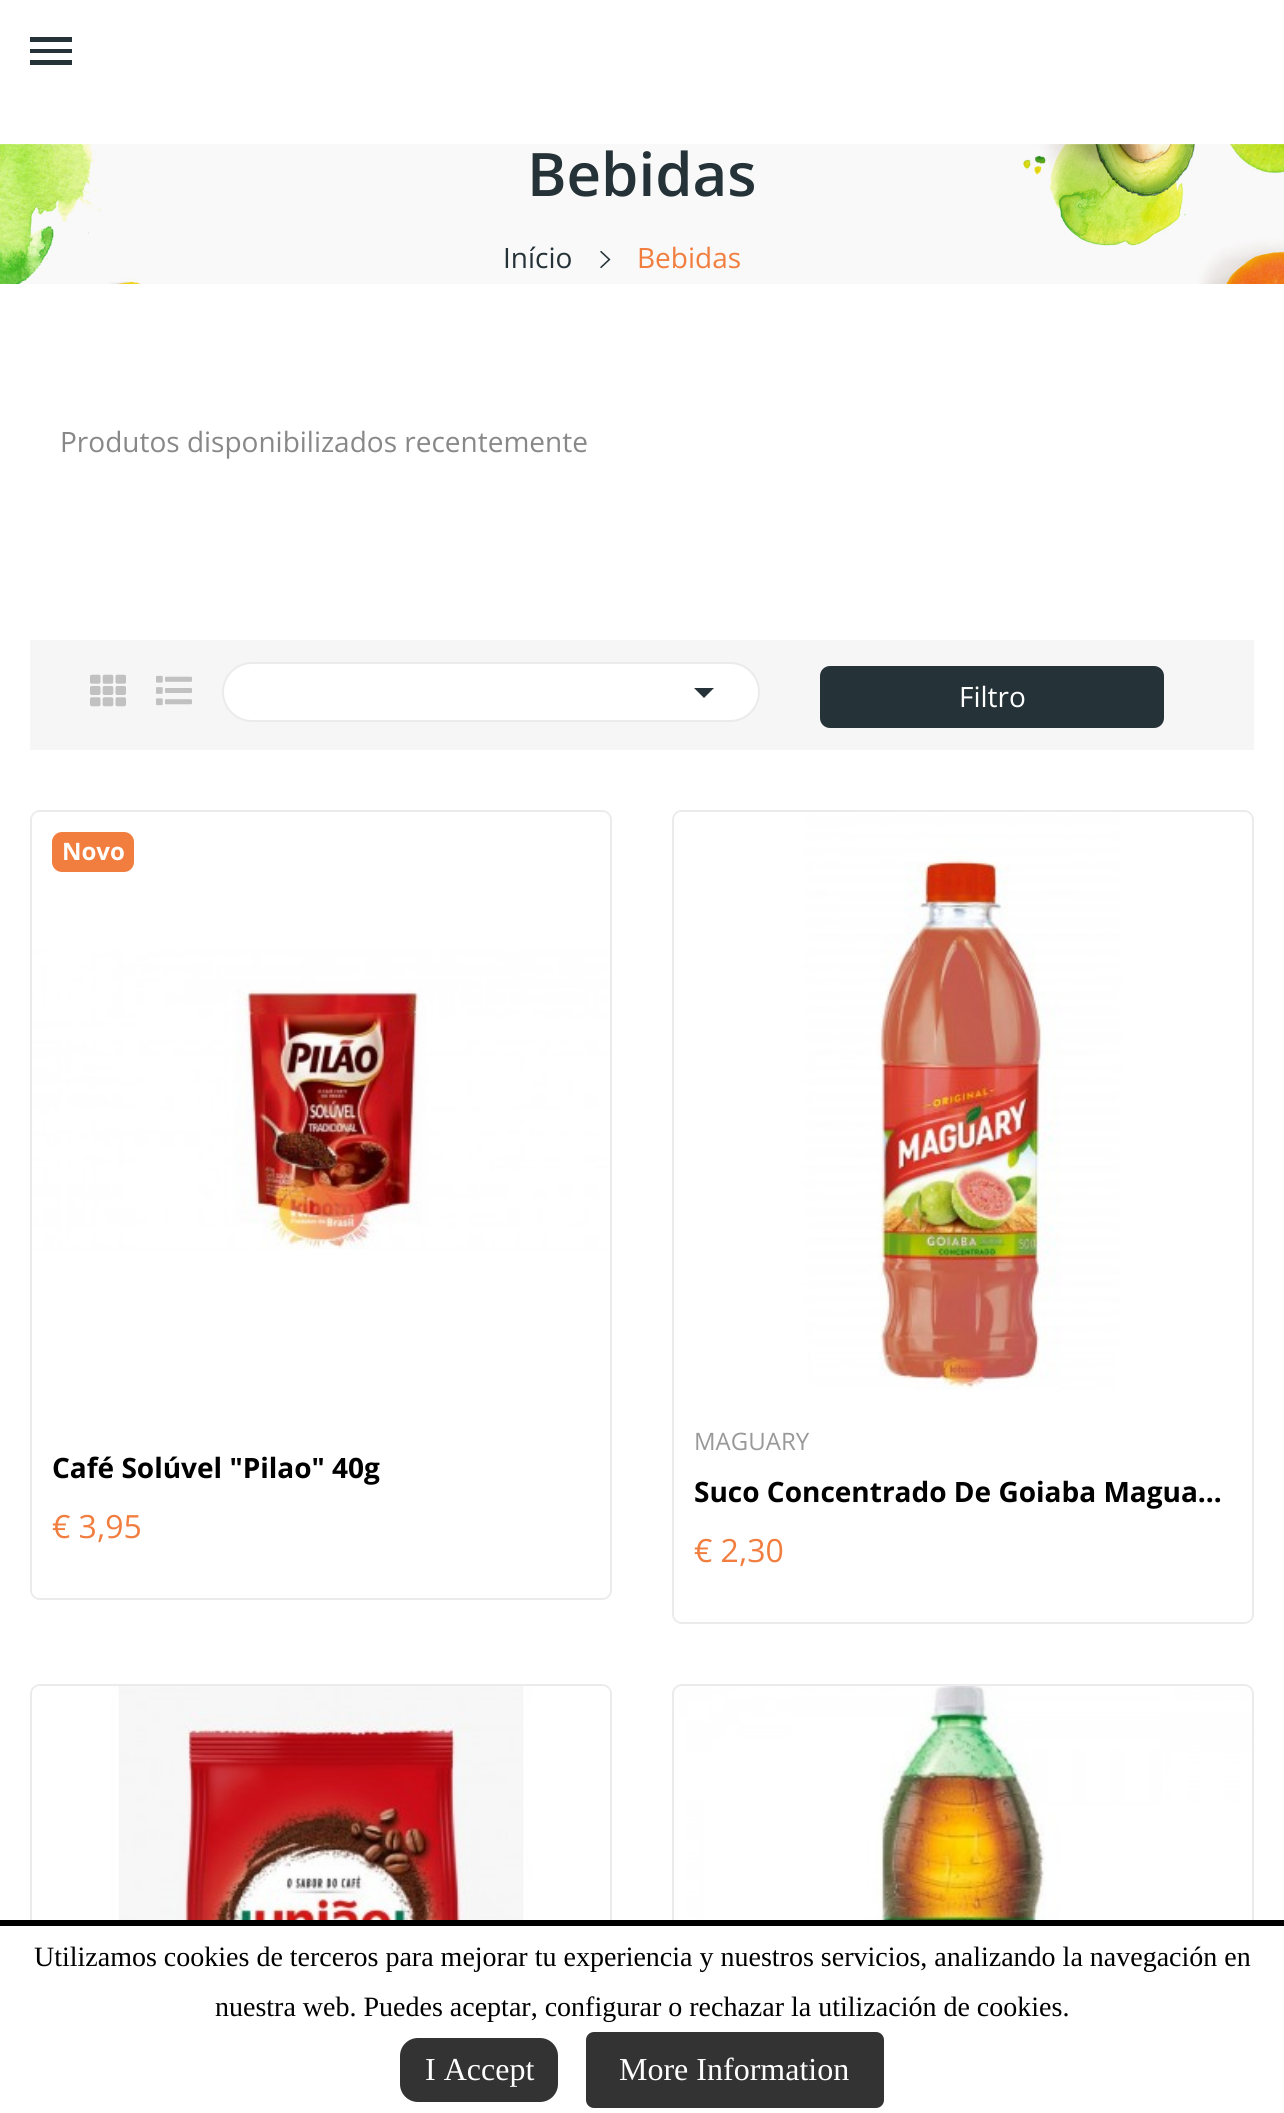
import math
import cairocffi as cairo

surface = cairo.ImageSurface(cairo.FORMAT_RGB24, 1284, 2113)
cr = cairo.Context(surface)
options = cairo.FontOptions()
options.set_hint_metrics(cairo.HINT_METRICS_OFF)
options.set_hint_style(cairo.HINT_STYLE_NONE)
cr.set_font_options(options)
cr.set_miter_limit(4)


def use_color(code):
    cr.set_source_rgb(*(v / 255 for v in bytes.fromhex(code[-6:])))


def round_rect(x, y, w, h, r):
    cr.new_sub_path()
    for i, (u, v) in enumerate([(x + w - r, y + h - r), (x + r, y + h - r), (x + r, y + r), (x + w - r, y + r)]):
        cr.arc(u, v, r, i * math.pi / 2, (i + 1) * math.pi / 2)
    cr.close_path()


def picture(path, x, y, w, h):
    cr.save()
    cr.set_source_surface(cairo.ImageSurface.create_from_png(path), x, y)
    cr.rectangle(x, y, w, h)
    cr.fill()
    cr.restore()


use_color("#ffffff")
cr.paint()
use_color("#253237")
cr.new_path()
cr.move_to(30, 65)
cr.line_to(30, 60)
cr.line_to(72, 60)
cr.line_to(72, 65)
cr.close_path()
cr.move_to(30, 53)
cr.line_to(30, 49)
cr.line_to(72, 49)
cr.line_to(72, 53)
cr.close_path()
cr.move_to(30, 37)
cr.line_to(72, 37)
cr.line_to(72, 42)
cr.line_to(30, 42)
cr.close_path()
cr.fill()
picture("img1.png", 0, 144, 1284, 140)
cr.select_font_face("Open Sans SemiBold")
cr.set_font_size(60)
cr.move_to(527, 196)
cr.show_text("Bebidas")
cr.select_font_face("Open Sans")
cr.set_font_size(28)
cr.move_to(503, 268)
cr.show_text("Início")
picture("img2.png", 600, 250, 11, 19)
use_color("#f17d3e")
cr.move_to(637, 268)
cr.show_text("Bebidas")
use_color("#888888")
cr.move_to(60, 452)
cr.show_text("Produtos disponibilizados recentemente")
use_color("#f6f6f6")
cr.rectangle(30, 640, 1224, 110)
cr.fill()
picture("img3.png", 90, 674, 36, 33)
picture("img4.png", 156, 675, 36, 31)
use_color("#ffffff")
round_rect(223, 663, 536, 58, 29)
cr.fill_preserve()
use_color("#ebebeb")
cr.stroke()
use_color("#253237")
cr.new_path()
cr.move_to(694, 688)
cr.line_to(714, 688)
cr.line_to(704, 698)
cr.close_path()
cr.fill()
round_rect(820, 666, 344, 62, 10)
cr.fill()
use_color("#ffffff")
cr.move_to(959, 707)
cr.show_text("Filtro")
round_rect(31, 811, 580, 788, 9)
use_color("#ebebeb")
cr.stroke()
picture("img5.png", 32, 812, 578, 438)
use_color("#f17d3e")
round_rect(52, 832, 82, 40, 10)
cr.fill()
cr.select_font_face("Open Sans", cairo.FONT_SLANT_NORMAL, cairo.FONT_WEIGHT_BOLD)
cr.set_font_size(24)
use_color("#ffffff")
cr.move_to(62, 860)
cr.show_text("Novo")
cr.new_path()
cr.move_to(32, 1390)
cr.line_to(610, 1390)
cr.line_to(610, 1590)
cr.curve_to(610, 1594.5, 606.5, 1598, 602, 1598)
cr.line_to(40, 1598)
cr.curve_to(35.5, 1598, 32, 1594.5, 32, 1590)
cr.close_path()
cr.fill()
cr.set_font_size(28)
use_color("#000000")
cr.move_to(52, 1478)
cr.show_text("Café Solúvel \"Pilao\" 40g")
cr.select_font_face("Open Sans")
cr.set_font_size(32)
use_color("#f17d3e")
cr.move_to(52, 1538)
cr.show_text("€ 3,95")
round_rect(673, 811, 580, 812, 9)
use_color("#ebebeb")
cr.stroke()
picture("img6.png", 674, 812, 578, 578)
use_color("#ffffff")
cr.new_path()
cr.move_to(674, 1390)
cr.line_to(1252, 1390)
cr.line_to(1252, 1614)
cr.curve_to(1252, 1618.5, 1248.5, 1622, 1244, 1622)
cr.line_to(682, 1622)
cr.curve_to(677.5, 1622, 674, 1618.5, 674, 1614)
cr.close_path()
cr.fill()
cr.set_font_size(24)
use_color("#999999")
cr.move_to(694, 1450)
cr.show_text("MAGUARY")
cr.select_font_face("Open Sans", cairo.FONT_SLANT_NORMAL, cairo.FONT_WEIGHT_BOLD)
cr.set_font_size(28)
use_color("#000000")
cr.move_to(694, 1502)
cr.show_text("Suco Concentrado De Goiaba Magua…")
cr.select_font_face("Open Sans")
cr.set_font_size(32)
use_color("#f17d3e")
cr.move_to(694, 1562)
cr.show_text("€ 2,30")
round_rect(31, 1685, 580, 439, 9)
use_color("#ebebeb")
cr.stroke()
picture("img7.png", 32, 1686, 578, 234)
round_rect(673, 1685, 580, 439, 9)
cr.stroke()
picture("img8.png", 679, 1686, 573, 234)
use_color("#ffffff")
cr.rectangle(30, 1926, 1224, 187)
cr.fill()
use_color("#000000")
cr.rectangle(0, 1920, 1284, 6)
cr.fill()
cr.select_font_face("Liberation Serif")
cr.set_font_size(28)
cr.move_to(34, 1966)
cr.show_text("Utilizamos cookies de terceros para mejorar tu experiencia y nuestros servicios, analizando la navegación en")
cr.move_to(215, 2016)
cr.show_text("nuestra web. Puedes aceptar, configurar o rechazar la utilización de cookies.")
use_color("#333333")
round_rect(400, 2038, 158, 64, 18)
cr.fill()
cr.set_font_size(32)
use_color("#ffffff")
cr.move_to(425, 2080)
cr.show_text("I Accept")
use_color("#333333")
round_rect(586, 2032, 298, 76, 8)
cr.fill()
use_color("#ffffff")
cr.move_to(619, 2080)
cr.show_text("More Information")
surface.write_to_png("result.png")
